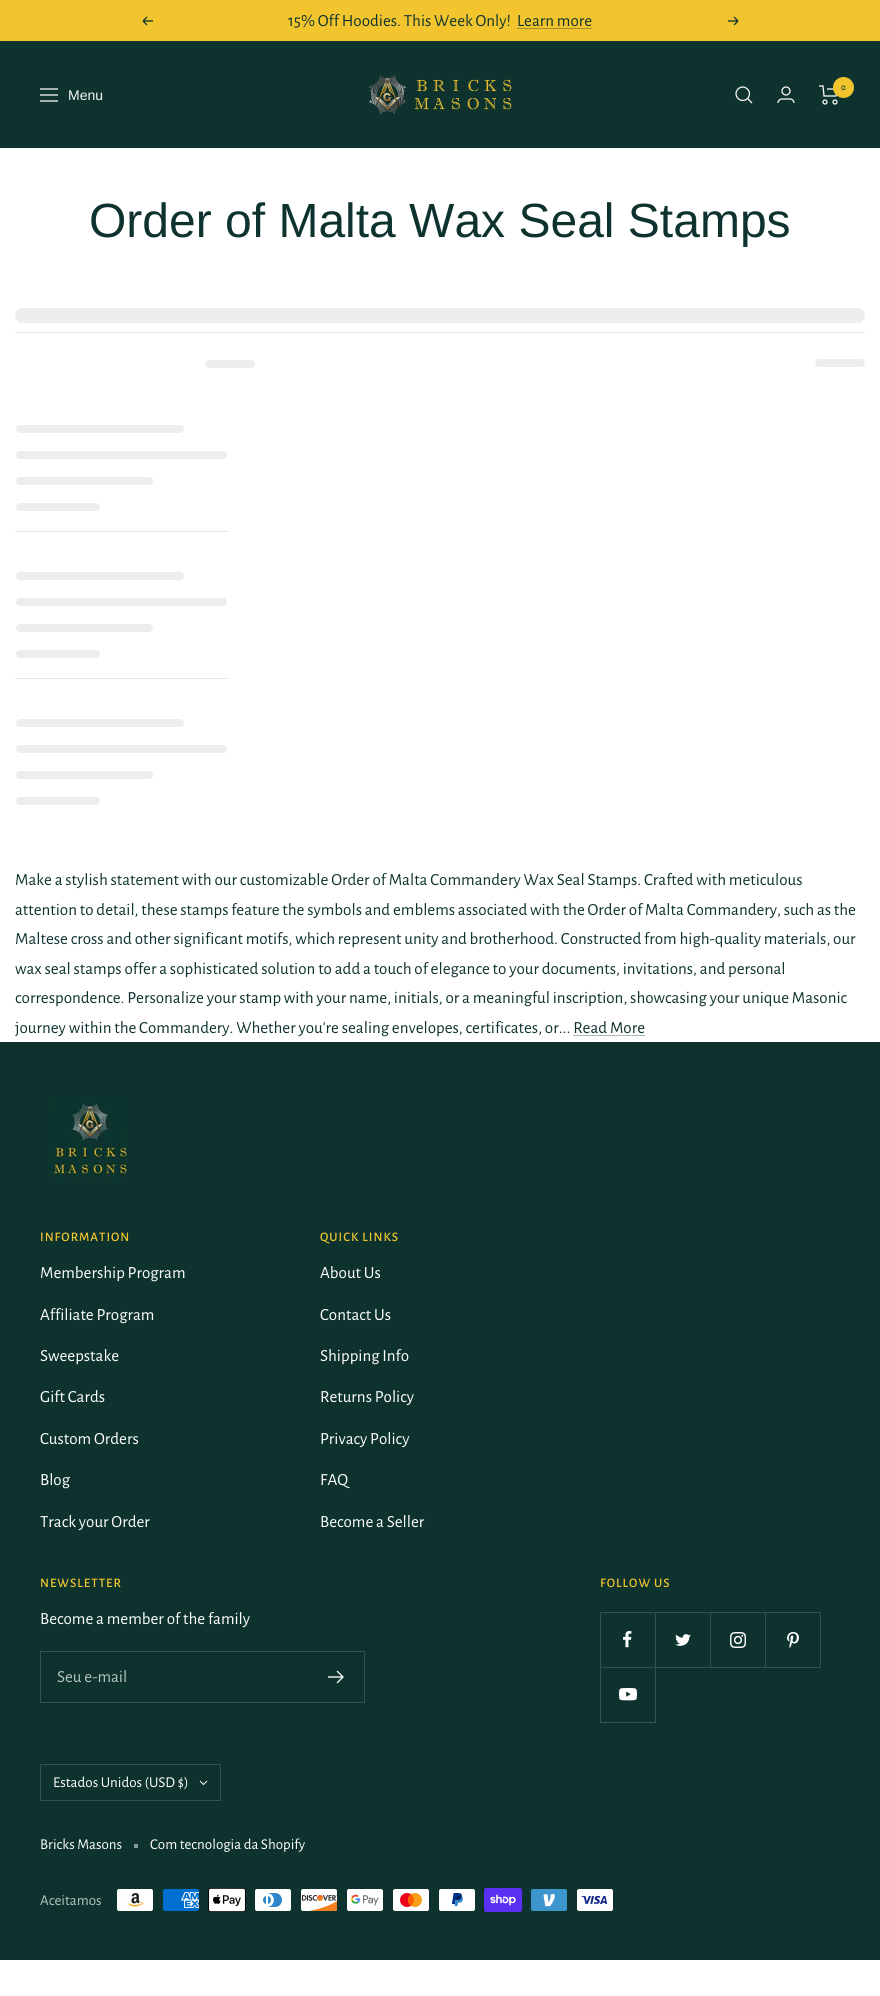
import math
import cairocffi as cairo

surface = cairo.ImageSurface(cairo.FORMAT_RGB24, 880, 1996)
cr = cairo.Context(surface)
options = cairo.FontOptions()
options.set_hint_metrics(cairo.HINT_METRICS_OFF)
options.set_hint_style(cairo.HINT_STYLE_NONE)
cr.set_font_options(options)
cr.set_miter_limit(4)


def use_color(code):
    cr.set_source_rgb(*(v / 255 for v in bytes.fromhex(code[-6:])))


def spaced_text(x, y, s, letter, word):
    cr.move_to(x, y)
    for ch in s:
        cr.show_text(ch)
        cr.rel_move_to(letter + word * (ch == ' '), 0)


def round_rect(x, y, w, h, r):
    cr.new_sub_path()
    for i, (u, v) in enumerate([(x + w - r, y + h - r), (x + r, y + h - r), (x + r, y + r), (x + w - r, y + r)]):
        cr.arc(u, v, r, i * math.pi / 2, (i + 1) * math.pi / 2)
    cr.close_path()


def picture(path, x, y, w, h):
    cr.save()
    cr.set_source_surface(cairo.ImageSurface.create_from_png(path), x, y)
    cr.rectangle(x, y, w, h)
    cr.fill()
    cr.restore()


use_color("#ffffff")
cr.paint()
use_color("#f2c52f")
cr.rectangle(0, 0, 880, 41)
cr.fill()
cr.new_path()
cr.move_to(153, 21)
cr.line_to(143, 21)
cr.move_to(143, 21)
cr.line_to(147, 25)
cr.move_to(143, 21)
cr.line_to(147, 17)
use_color("#0e332e")
cr.set_line_width(1.3)
cr.stroke()
cr.select_font_face("Alegreya Sans")
cr.set_font_size(17)
cr.move_to(288, 26)
cr.show_text("15% Off Hoodies. This Week Only!")
cr.move_to(517, 26)
cr.show_text("Learn more")
use_color("#a2922f")
cr.rectangle(517, 28, 75, 1)
cr.fill()
cr.new_path()
cr.move_to(728, 21)
cr.line_to(738, 21)
cr.move_to(738, 21)
cr.line_to(734, 25)
cr.move_to(738, 21)
cr.line_to(734, 17)
use_color("#0e332e")
cr.stroke()
cr.rectangle(0, 41, 880, 107)
cr.fill()
picture("img1.png", 368, 75, 144, 39)
cr.new_path()
cr.move_to(747.5, 98.5)
cr.curve_to(753.5, 92, 744.5, 83, 738, 89)
cr.curve_to(732, 95.5, 741, 104.5, 747.5, 98.5)
cr.close_path()
cr.move_to(747.5, 98.5)
cr.line_to(752, 103)
use_color("#f5f5f5")
cr.stroke()
picture("img2.png", 777, 86, 18, 17)
picture("img3.png", 819, 85, 19, 20)
use_color("#f2c52f")
cr.arc(843.5, 87.5, 10.5, 0, 2 * math.pi)
cr.fill()
cr.select_font_face("Alegreya Sans Medium")
cr.set_font_size(9)
use_color("#0e332e")
cr.move_to(841, 90)
cr.show_text("0")
cr.new_path()
cr.move_to(40, 89)
cr.line_to(58, 89)
cr.move_to(40, 101)
cr.line_to(58, 101)
cr.close_path()
cr.move_to(40, 95)
cr.line_to(58, 95)
cr.close_path()
use_color("#f5f5f5")
cr.stroke()
cr.select_font_face("Liberation Sans")
cr.set_font_size(14)
cr.move_to(68, 100)
cr.show_text("Menu")
cr.set_font_size(48)
use_color("#0e332e")
cr.move_to(89, 237)
cr.show_text("Order of Malta Wax Seal Stamps")
use_color("#e8e9eb")
cr.rectangle(15, 332, 850, 1)
cr.fill()
use_color("#ededed")
round_rect(15, 308, 850, 15, 7.5)
cr.fill()
round_rect(205, 360, 50, 8, 4)
cr.fill()
round_rect(815, 359, 50, 8, 4)
cr.fill()
round_rect(16, 425, 168, 8, 4)
cr.fill()
round_rect(16, 451, 211, 8, 4)
cr.fill()
round_rect(16, 477, 137, 8, 4)
cr.fill()
round_rect(16, 503, 84, 8, 4)
cr.fill()
use_color("#e3e3e3")
cr.rectangle(15, 531, 213, 1)
cr.fill()
use_color("#ededed")
round_rect(16, 572, 168, 8, 4)
cr.fill()
round_rect(16, 598, 211, 8, 4)
cr.fill()
round_rect(16, 624, 137, 8, 4)
cr.fill()
round_rect(16, 650, 84, 8, 4)
cr.fill()
use_color("#e3e3e3")
cr.rectangle(15, 678, 213, 1)
cr.fill()
use_color("#ededed")
round_rect(16, 719, 168, 8, 4)
cr.fill()
round_rect(16, 745, 211, 8, 4)
cr.fill()
round_rect(16, 771, 137, 8, 4)
cr.fill()
round_rect(16, 797, 84, 8, 4)
cr.fill()
cr.select_font_face("Alegreya Sans")
cr.set_font_size(17)
use_color("#0e332e")
cr.move_to(15, 885)
cr.show_text("Make a stylish statement with our customizable Order of Malta Commandery Wax Seal Stamps. Crafted with meticulous")
cr.move_to(15, 915)
cr.show_text("attention to detail, these stamps feature the symbols and emblems associated with the Order of Malta Commandery, such as the")
cr.move_to(15, 944)
cr.show_text("Maltese cross and other significant motifs, which represent unity and brotherhood. Constructed from high-quality materials, our")
cr.move_to(15, 974)
cr.show_text("wax seal stamps offer a sophisticated solution to add a touch of elegance to your documents, invitations, and personal")
cr.move_to(15, 1003)
cr.show_text("correspondence. Personalize your stamp with your name, initials, or a meaningful inscription, showcasing your unique Masonic")
cr.move_to(15, 1033)
cr.show_text("journey within the Commandery. Whether you're sealing envelopes, certificates, or... Read More")
use_color("#abb8b6")
cr.rectangle(573, 1035, 72, 1)
cr.fill()
use_color("#0e332e")
cr.rectangle(0, 1042, 880, 918)
cr.fill()
picture("img4.png", 48, 1099, 81, 79)
cr.select_font_face("Alegreya Sans Medium")
cr.set_font_size(13)
use_color("#f2c52f")
spaced_text(40, 1241, "INFORMATION", 1, 0)
cr.select_font_face("Alegreya Sans")
cr.set_font_size(17)
use_color("#ffffff")
cr.move_to(40, 1278)
cr.show_text("Membership Program")
cr.move_to(40, 1320)
cr.show_text("Affiliate Program")
cr.move_to(40, 1361)
cr.show_text("Sweepstake")
cr.move_to(40, 1402)
cr.show_text("Gift Cards")
cr.move_to(40, 1444)
cr.show_text("Custom Orders")
cr.move_to(40, 1485)
cr.show_text("Blog")
cr.move_to(40, 1527)
cr.show_text("Track your Order")
cr.select_font_face("Alegreya Sans Medium")
cr.set_font_size(13)
use_color("#f2c52f")
spaced_text(320, 1241, "QUICK LINKS", 1, 0)
cr.select_font_face("Alegreya Sans")
cr.set_font_size(17)
use_color("#ffffff")
cr.move_to(320, 1278)
cr.show_text("About Us")
cr.move_to(320, 1320)
cr.show_text("Contact Us")
cr.move_to(320, 1361)
cr.show_text("Shipping Info")
cr.move_to(320, 1402)
cr.show_text("Returns Policy")
cr.move_to(320, 1444)
cr.show_text("Privacy Policy")
cr.move_to(320, 1485)
cr.show_text("FAQ")
cr.move_to(320, 1527)
cr.show_text("Become a Seller")
cr.select_font_face("Alegreya Sans Medium")
cr.set_font_size(13)
use_color("#f2c52f")
spaced_text(40, 1587, "NEWSLETTER", 1, 0)
cr.select_font_face("Alegreya Sans")
cr.set_font_size(17)
use_color("#ffffff")
cr.move_to(40, 1624)
cr.show_text("Become a member of the family")
cr.rectangle(40.5, 1651.5, 324, 51)
use_color("#32524d")
cr.set_line_width(1)
cr.stroke()
use_color("#b7c2c0")
cr.move_to(57, 1682)
cr.show_text("Seu e-mail")
cr.new_path()
cr.move_to(328, 1677)
cr.line_to(343, 1677)
cr.move_to(337, 1671)
cr.line_to(343, 1677)
cr.line_to(337, 1683)
use_color("#ffffff")
cr.set_line_width(1.3)
cr.stroke()
cr.select_font_face("Alegreya Sans Medium")
cr.set_font_size(13)
use_color("#f2c52f")
spaced_text(600, 1587, "FOLLOW US", 1, 0)
use_color("#32524d")
cr.new_path()
cr.move_to(601, 1667)
cr.line_to(601, 1668)
cr.line_to(656, 1668)
cr.line_to(656, 1613)
cr.line_to(655, 1613)
cr.line_to(655, 1667)
cr.close_path()
cr.fill()
cr.rectangle(600, 1667, 1, 1)
cr.fill()
cr.rectangle(600, 1612, 56, 1)
cr.fill()
cr.rectangle(600, 1612, 1, 55)
cr.fill()
picture("img5.png", 623, 1631, 9, 17)
cr.new_path()
cr.move_to(656, 1667)
cr.line_to(656, 1668)
cr.line_to(711, 1668)
cr.line_to(711, 1613)
cr.line_to(710, 1613)
cr.line_to(710, 1667)
cr.close_path()
cr.fill()
cr.rectangle(655, 1612, 56, 1)
cr.fill()
picture("img6.png", 675, 1634, 16, 12)
cr.new_path()
cr.move_to(711, 1667)
cr.line_to(711, 1668)
cr.line_to(766, 1668)
cr.line_to(766, 1613)
cr.line_to(765, 1613)
cr.line_to(765, 1667)
cr.close_path()
cr.fill()
cr.rectangle(710, 1612, 56, 1)
cr.fill()
picture("img7.png", 730, 1632, 16, 16)
cr.new_path()
cr.move_to(766, 1667)
cr.line_to(766, 1668)
cr.line_to(821, 1668)
cr.line_to(821, 1613)
cr.line_to(820, 1613)
cr.line_to(820, 1667)
cr.close_path()
cr.fill()
cr.rectangle(765, 1612, 56, 1)
cr.fill()
picture("img8.png", 787, 1632, 12, 16)
cr.new_path()
cr.move_to(601, 1722)
cr.line_to(601, 1723)
cr.line_to(656, 1723)
cr.line_to(656, 1668)
cr.line_to(655, 1668)
cr.line_to(655, 1722)
cr.close_path()
cr.fill()
cr.rectangle(600, 1667, 1, 56)
cr.fill()
picture("img9.png", 619, 1688, 18, 13)
cr.rectangle(40.5, 1764.5, 180, 36)
cr.set_line_width(1)
cr.stroke()
cr.select_font_face("Alegreya Sans")
cr.set_font_size(15)
use_color("#ffffff")
cr.move_to(53, 1787)
cr.show_text("Estados Unidos (USD $)")
cr.new_path()
cr.move_to(200, 1781)
cr.line_to(203.5, 1784.5)
cr.line_to(207, 1781)
cr.stroke()
cr.move_to(40, 1849)
cr.show_text("Bricks Masons")
use_color("#879997")
cr.rectangle(134, 1844, 4, 4)
cr.fill()
use_color("#ffffff")
cr.move_to(150, 1849)
cr.show_text("Com tecnologia da Shopify")
use_color("#b7c2c0")
cr.move_to(40, 1905)
cr.show_text("Aceitamos")
picture("img10.png", 117, 1889, 36, 22)
picture("img11.png", 163, 1889, 36, 22)
picture("img12.png", 208, 1888, 38, 24)
picture("img13.png", 255, 1889, 36, 22)
picture("img14.png", 301, 1889, 36, 22)
picture("img15.png", 347, 1889, 36, 22)
picture("img16.png", 393, 1889, 36, 22)
picture("img17.png", 439, 1889, 36, 22)
picture("img18.png", 484, 1888, 38, 24)
picture("img19.png", 531, 1889, 36, 22)
picture("img20.png", 577, 1889, 36, 22)
surface.write_to_png("result.png")
